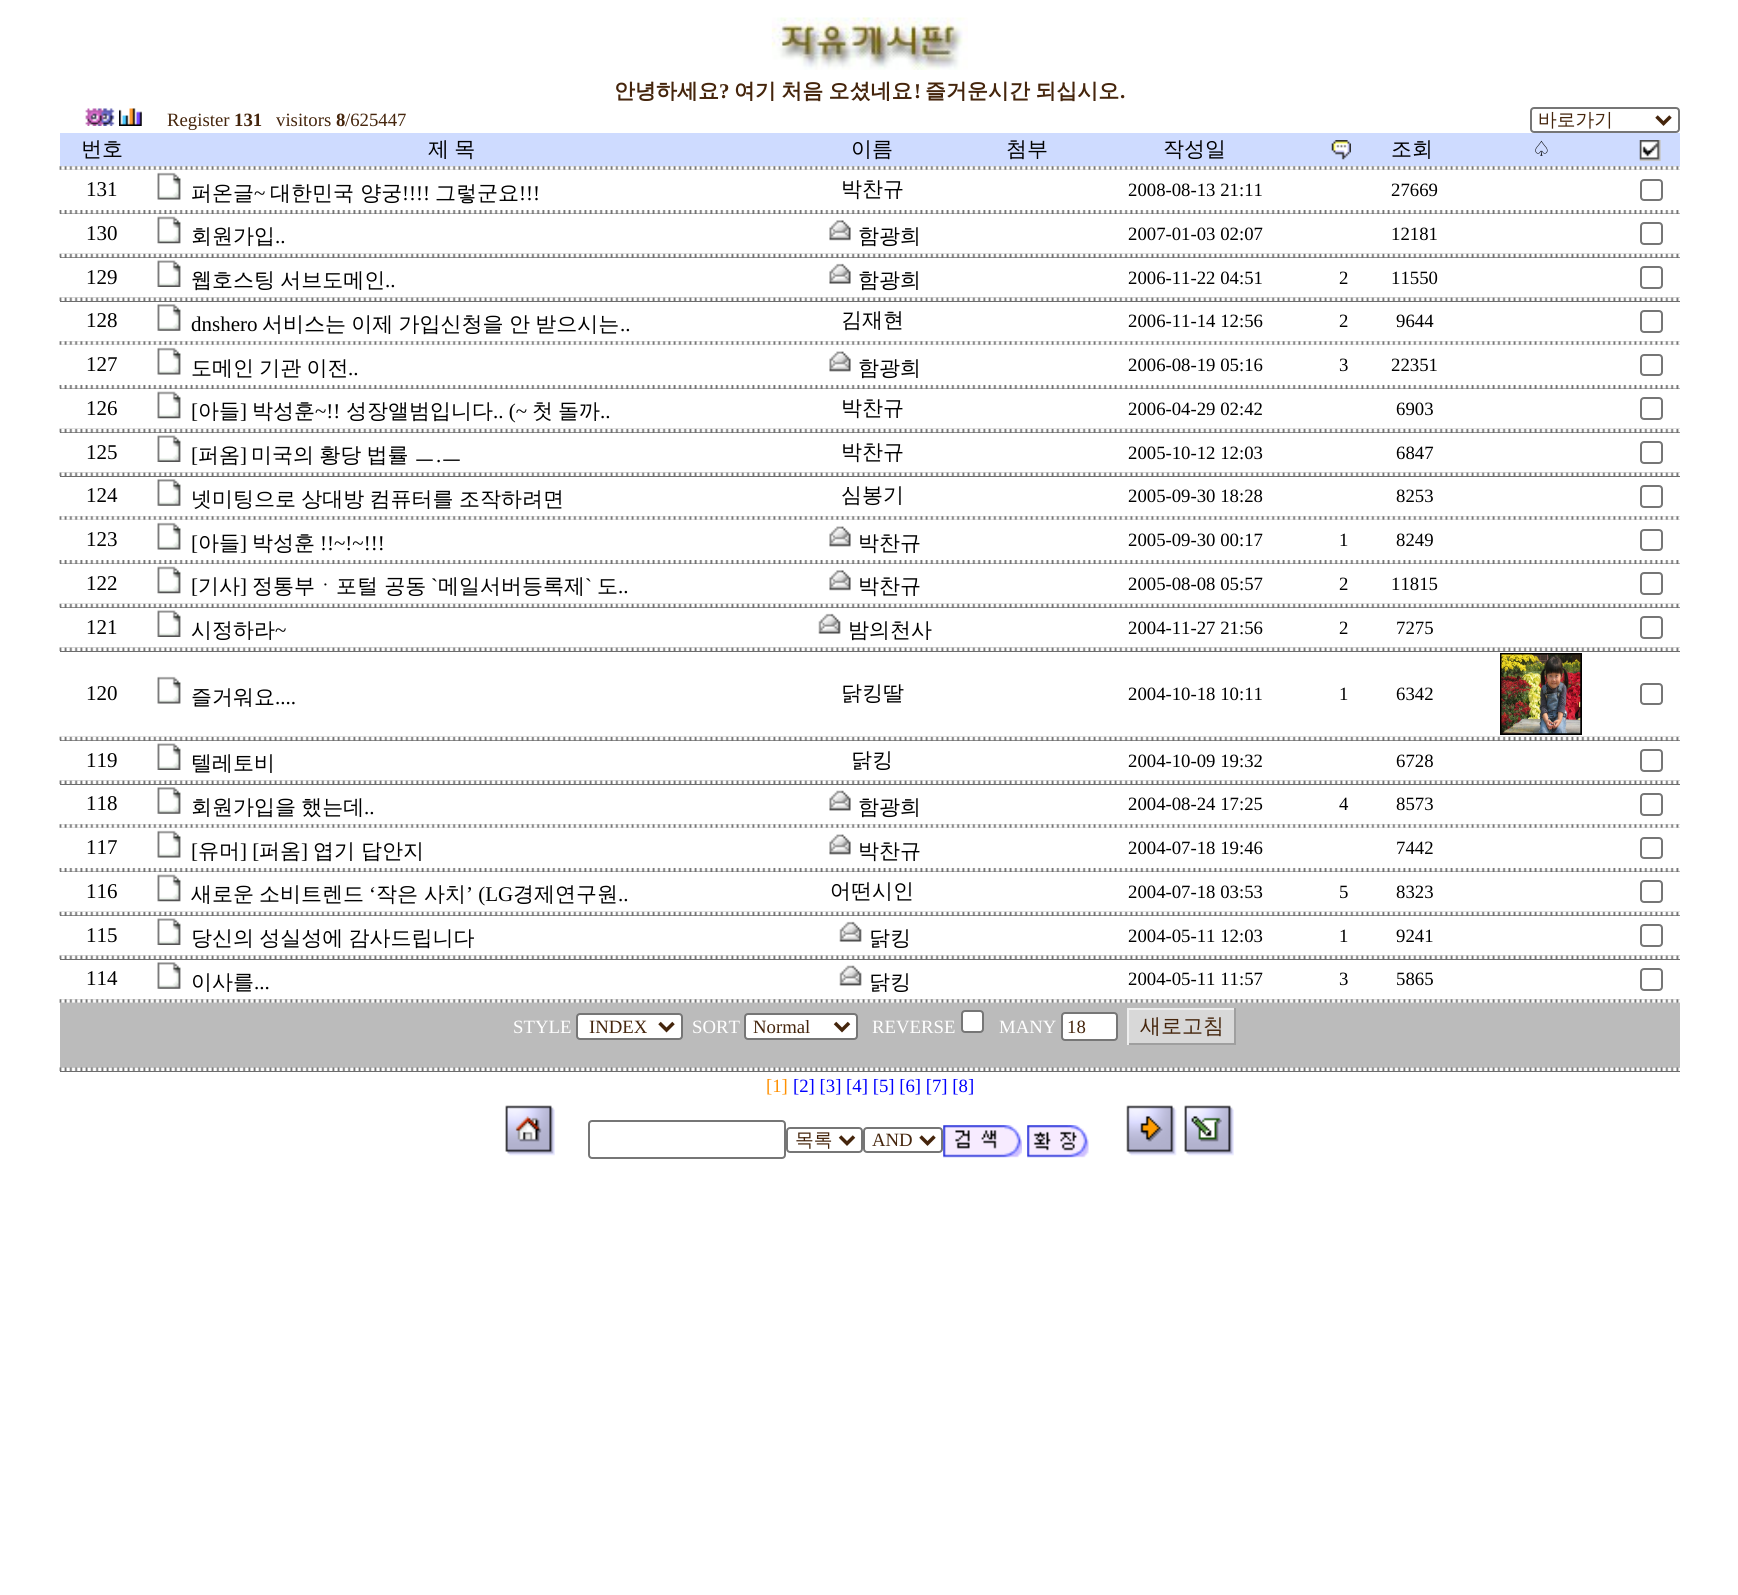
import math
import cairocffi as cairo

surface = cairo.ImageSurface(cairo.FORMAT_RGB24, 1738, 1595)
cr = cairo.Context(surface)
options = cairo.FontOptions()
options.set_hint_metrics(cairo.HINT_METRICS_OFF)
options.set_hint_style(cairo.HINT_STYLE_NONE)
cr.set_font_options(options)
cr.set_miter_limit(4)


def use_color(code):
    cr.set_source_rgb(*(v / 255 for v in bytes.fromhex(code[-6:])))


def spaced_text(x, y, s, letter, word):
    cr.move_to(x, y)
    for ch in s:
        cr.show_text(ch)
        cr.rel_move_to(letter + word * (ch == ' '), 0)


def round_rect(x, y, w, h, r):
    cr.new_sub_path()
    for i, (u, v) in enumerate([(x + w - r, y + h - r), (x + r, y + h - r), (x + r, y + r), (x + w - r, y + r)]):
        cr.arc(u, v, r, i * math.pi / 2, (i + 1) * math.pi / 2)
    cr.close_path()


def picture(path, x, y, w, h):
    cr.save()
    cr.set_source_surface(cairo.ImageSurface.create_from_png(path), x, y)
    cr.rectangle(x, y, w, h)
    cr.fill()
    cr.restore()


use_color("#ffffff")
cr.paint()
picture("img1.png", 771, 17, 197, 53)
cr.select_font_face("WenQuanYi Zen Hei", cairo.FONT_SLANT_NORMAL, cairo.FONT_WEIGHT_BOLD)
cr.set_font_size(21)
use_color("#45250c")
cr.move_to(614, 98)
cr.show_text("안녕하세요")
cr.select_font_face("Liberation Serif", cairo.FONT_SLANT_NORMAL, cairo.FONT_WEIGHT_BOLD)
cr.move_to(719, 98)
cr.show_text("?")
cr.select_font_face("WenQuanYi Zen Hei", cairo.FONT_SLANT_NORMAL, cairo.FONT_WEIGHT_BOLD)
spaced_text(734, 98, "여기 처음 오셨네요", 0, -1)
cr.select_font_face("Liberation Serif", cairo.FONT_SLANT_NORMAL, cairo.FONT_WEIGHT_BOLD)
cr.move_to(914, 98)
cr.show_text("!")
cr.select_font_face("WenQuanYi Zen Hei", cairo.FONT_SLANT_NORMAL, cairo.FONT_WEIGHT_BOLD)
spaced_text(925, 98, "즐거운시간 되십시오", 0, -1)
cr.select_font_face("Liberation Serif", cairo.FONT_SLANT_NORMAL, cairo.FONT_WEIGHT_BOLD)
cr.move_to(1120, 98)
cr.show_text(".")
picture("img2.png", 85, 108, 30, 18)
picture("img3.png", 119, 108, 23, 18)
cr.select_font_face("Liberation Serif")
cr.set_font_size(18.75)
cr.move_to(167, 126)
cr.show_text("Register")
cr.select_font_face("Liberation Serif", cairo.FONT_SLANT_NORMAL, cairo.FONT_WEIGHT_BOLD)
cr.move_to(234, 126)
cr.show_text("131")
cr.select_font_face("Liberation Serif")
cr.move_to(276, 126)
cr.show_text("visitors")
cr.select_font_face("Liberation Serif", cairo.FONT_SLANT_NORMAL, cairo.FONT_WEIGHT_BOLD)
cr.move_to(336, 126)
cr.show_text("8")
cr.select_font_face("Liberation Serif")
cr.move_to(345, 126)
cr.show_text("/625447")
round_rect(1531, 108, 148, 24, 3)
use_color("#767676")
cr.stroke()
cr.new_path()
cr.move_to(1656.5, 116.5)
cr.line_to(1663.5, 123.5)
cr.line_to(1670.5, 116.5)
use_color("#45250c")
cr.set_line_width(3.5)
cr.stroke()
cr.select_font_face("WenQuanYi Zen Hei Medium")
cr.move_to(1538, 126)
cr.show_text("바로가기")
use_color("#cedbff")
cr.rectangle(60, 133, 1620, 33)
cr.fill()
cr.set_font_size(21)
use_color("#000000")
cr.move_to(81, 156)
cr.show_text("번호")
spaced_text(428, 156, "제 목", 0, -1)
cr.move_to(851, 156)
cr.show_text("이름")
cr.move_to(1006, 156)
cr.show_text("첨부")
cr.move_to(1163, 156)
cr.show_text("작성일")
picture("img4.png", 1331, 140, 20, 20)
cr.move_to(1391, 156)
cr.show_text("조회")
cr.select_font_face("DejaVu Sans")
cr.move_to(1532, 156)
cr.show_text("♤")
picture("img5.png", 1639, 140, 22, 21)
picture("img6.png", 59, 166, 1621, 4)
cr.select_font_face("Liberation Serif")
cr.move_to(86, 196)
cr.show_text("131")
picture("img7.png", 157, 172, 24, 28)
cr.select_font_face("WenQuanYi Zen Hei Medium")
cr.move_to(191, 200)
cr.show_text("퍼온글")
cr.select_font_face("Liberation Serif")
cr.move_to(254, 200)
cr.show_text("~")
cr.select_font_face("WenQuanYi Zen Hei Medium")
cr.move_to(270, 200)
cr.show_text("대한민국 양궁")
cr.select_font_face("Liberation Serif")
cr.move_to(402, 200)
cr.show_text("!!!!")
cr.select_font_face("WenQuanYi Zen Hei Medium")
cr.move_to(435, 200)
cr.show_text("그렇군요")
cr.select_font_face("Liberation Serif")
cr.move_to(519, 200)
cr.show_text("!!!")
cr.select_font_face("WenQuanYi Zen Hei Medium")
cr.move_to(841, 196)
cr.show_text("박찬규")
cr.select_font_face("Liberation Serif")
cr.set_font_size(18.75)
cr.move_to(1128, 196)
cr.show_text("2008-08-13 21:11")
cr.move_to(1391, 196)
cr.show_text("27669")
round_rect(1641, 180, 21, 20, 3)
use_color("#767676")
cr.set_line_width(2)
cr.stroke()
use_color("#6c6c6c")
cr.rectangle(60, 213, 1620, 1)
cr.fill()
picture("img8.png", 59, 210, 1621, 4)
cr.set_font_size(21)
use_color("#000000")
cr.move_to(86, 240)
cr.show_text("130")
picture("img9.png", 157, 216, 24, 28)
cr.select_font_face("WenQuanYi Zen Hei Medium")
cr.move_to(191, 243)
cr.show_text("회원가입")
cr.select_font_face("Liberation Serif")
cr.move_to(275, 243)
cr.show_text("..")
picture("img10.png", 829, 220, 22, 21)
cr.select_font_face("WenQuanYi Zen Hei Medium")
cr.move_to(858, 243)
cr.show_text("함광희")
cr.select_font_face("Liberation Serif")
cr.set_font_size(18.75)
cr.move_to(1128, 240)
cr.show_text("2007-01-03 02:07")
cr.move_to(1391, 240)
cr.show_text("12181")
round_rect(1641, 223, 21, 21, 3)
use_color("#767676")
cr.stroke()
use_color("#6c6c6c")
cr.rectangle(60, 257, 1620, 1)
cr.fill()
picture("img11.png", 59, 253, 1621, 5)
cr.set_font_size(21)
use_color("#000000")
cr.move_to(86, 284)
cr.show_text("129")
picture("img12.png", 157, 260, 24, 27)
cr.select_font_face("WenQuanYi Zen Hei Medium")
spaced_text(191, 287, "웹호스팅 서브도메인", 0, -1)
cr.select_font_face("Liberation Serif")
cr.move_to(385, 287)
cr.show_text("..")
picture("img13.png", 829, 263, 22, 21)
cr.select_font_face("WenQuanYi Zen Hei Medium")
cr.move_to(858, 287)
cr.show_text("함광희")
cr.select_font_face("Liberation Serif")
cr.set_font_size(18.75)
cr.move_to(1128, 284)
cr.show_text("2006-11-22 04:51")
cr.move_to(1339, 284)
cr.show_text("2")
cr.move_to(1391, 284)
cr.show_text("11550")
round_rect(1641, 267, 21, 21, 3)
use_color("#767676")
cr.stroke()
use_color("#6c6c6c")
cr.rectangle(60, 301, 1620, 1)
cr.fill()
picture("img14.png", 59, 297, 1621, 4)
cr.set_font_size(21)
use_color("#000000")
cr.move_to(86, 327)
cr.show_text("128")
picture("img15.png", 157, 304, 24, 27)
cr.move_to(191, 331)
cr.show_text("dnshero")
cr.select_font_face("WenQuanYi Zen Hei Medium")
spaced_text(262, 331, "서비스는 이제 가입신청을 안 받으시는", 0, -1)
cr.select_font_face("Liberation Serif")
cr.move_to(620, 331)
cr.show_text("..")
cr.select_font_face("WenQuanYi Zen Hei Medium")
cr.move_to(841, 327)
cr.show_text("김재현")
cr.select_font_face("Liberation Serif")
cr.set_font_size(18.75)
cr.move_to(1128, 327)
cr.show_text("2006-11-14 12:56")
cr.move_to(1339, 327)
cr.show_text("2")
cr.move_to(1396, 327)
cr.show_text("9644")
round_rect(1641, 311, 21, 21, 3)
use_color("#767676")
cr.stroke()
picture("img6.png", 59, 341, 1621, 4)
cr.set_font_size(21)
use_color("#000000")
cr.move_to(86, 371)
cr.show_text("127")
picture("img7.png", 157, 347, 24, 28)
cr.select_font_face("WenQuanYi Zen Hei Medium")
spaced_text(191, 375, "도메인 기관 이전", 0, -1)
cr.select_font_face("Liberation Serif")
cr.move_to(348, 375)
cr.show_text("..")
picture("img16.png", 829, 351, 22, 21)
cr.select_font_face("WenQuanYi Zen Hei Medium")
cr.move_to(858, 375)
cr.show_text("함광희")
cr.select_font_face("Liberation Serif")
cr.set_font_size(18.75)
cr.move_to(1128, 371)
cr.show_text("2006-08-19 05:16")
cr.move_to(1339, 371)
cr.show_text("3")
cr.move_to(1391, 371)
cr.show_text("22351")
round_rect(1641, 355, 21, 20, 3)
use_color("#767676")
cr.stroke()
use_color("#6c6c6c")
cr.rectangle(60, 388, 1620, 1)
cr.fill()
picture("img8.png", 59, 385, 1621, 4)
cr.set_font_size(21)
use_color("#000000")
cr.move_to(86, 415)
cr.show_text("126")
picture("img17.png", 157, 391, 24, 28)
cr.move_to(191, 418)
cr.show_text("[")
cr.select_font_face("WenQuanYi Zen Hei Medium")
cr.move_to(198, 418)
cr.show_text("아들")
cr.select_font_face("Liberation Serif")
cr.move_to(240, 418)
cr.show_text("]")
cr.select_font_face("WenQuanYi Zen Hei Medium")
cr.move_to(252, 418)
cr.show_text("박성훈")
cr.select_font_face("Liberation Serif")
cr.move_to(315, 418)
cr.show_text("~!!")
cr.select_font_face("WenQuanYi Zen Hei Medium")
cr.move_to(346, 418)
cr.show_text("성장앨범입니다")
cr.select_font_face("Liberation Serif")
cr.move_to(493, 418)
cr.show_text(".. (~")
cr.select_font_face("WenQuanYi Zen Hei Medium")
cr.move_to(532, 418)
cr.show_text("첫")
cr.move_to(558, 418)
cr.show_text("돌까")
cr.select_font_face("Liberation Serif")
cr.move_to(600, 418)
cr.show_text("..")
cr.select_font_face("WenQuanYi Zen Hei Medium")
cr.move_to(841, 415)
cr.show_text("박찬규")
cr.select_font_face("Liberation Serif")
cr.set_font_size(18.75)
cr.move_to(1128, 415)
cr.show_text("2006-04-29 02:42")
cr.move_to(1396, 415)
cr.show_text("6903")
round_rect(1641, 398, 21, 21, 3)
use_color("#767676")
cr.stroke()
use_color("#6c6c6c")
cr.rectangle(60, 432, 1620, 1)
cr.fill()
picture("img11.png", 59, 428, 1621, 5)
cr.set_font_size(21)
use_color("#000000")
cr.move_to(86, 459)
cr.show_text("125")
picture("img12.png", 157, 435, 24, 27)
cr.move_to(191, 462)
cr.show_text("[")
cr.select_font_face("WenQuanYi Zen Hei Medium")
cr.move_to(198, 462)
cr.show_text("퍼옴")
cr.select_font_face("Liberation Serif")
cr.move_to(240, 462)
cr.show_text("]")
cr.select_font_face("WenQuanYi Zen Hei Medium")
spaced_text(251, 462, "미국의 황당 법률 ㅡ", 0, -1)
cr.select_font_face("Liberation Serif")
cr.move_to(436, 462)
cr.show_text(".")
cr.select_font_face("WenQuanYi Zen Hei Medium")
cr.move_to(441, 462)
cr.show_text("ㅡ")
cr.move_to(841, 459)
cr.show_text("박찬규")
cr.select_font_face("Liberation Serif")
cr.set_font_size(18.75)
cr.move_to(1128, 459)
cr.show_text("2005-10-12 12:03")
cr.move_to(1396, 459)
cr.show_text("6847")
round_rect(1641, 442, 21, 21, 3)
use_color("#767676")
cr.stroke()
use_color("#6c6c6c")
cr.rectangle(60, 476, 1620, 1)
cr.fill()
picture("img14.png", 59, 472, 1621, 4)
cr.set_font_size(21)
use_color("#000000")
cr.move_to(86, 502)
cr.show_text("124")
picture("img15.png", 157, 479, 24, 27)
cr.select_font_face("WenQuanYi Zen Hei Medium")
spaced_text(191, 506, "넷미팅으로 상대방 컴퓨터를 조작하려면", 0, -1)
cr.move_to(841, 502)
cr.show_text("심봉기")
cr.select_font_face("Liberation Serif")
cr.set_font_size(18.75)
cr.move_to(1128, 502)
cr.show_text("2005-09-30 18:28")
cr.move_to(1396, 502)
cr.show_text("8253")
round_rect(1641, 486, 21, 21, 3)
use_color("#767676")
cr.stroke()
picture("img6.png", 59, 516, 1621, 4)
cr.set_font_size(21)
use_color("#000000")
cr.move_to(86, 546)
cr.show_text("123")
picture("img7.png", 157, 522, 24, 28)
cr.move_to(191, 550)
cr.show_text("[")
cr.select_font_face("WenQuanYi Zen Hei Medium")
cr.move_to(198, 550)
cr.show_text("아들")
cr.select_font_face("Liberation Serif")
cr.move_to(240, 550)
cr.show_text("]")
cr.select_font_face("WenQuanYi Zen Hei Medium")
cr.move_to(252, 550)
cr.show_text("박성훈")
cr.select_font_face("Liberation Serif")
cr.move_to(320, 550)
cr.show_text("!!~!~!!!")
picture("img16.png", 829, 526, 22, 21)
cr.select_font_face("WenQuanYi Zen Hei Medium")
cr.move_to(858, 550)
cr.show_text("박찬규")
cr.select_font_face("Liberation Serif")
cr.set_font_size(18.75)
cr.move_to(1128, 546)
cr.show_text("2005-09-30 00:17")
cr.move_to(1339, 546)
cr.show_text("1")
cr.move_to(1396, 546)
cr.show_text("8249")
round_rect(1641, 530, 21, 20, 3)
use_color("#767676")
cr.stroke()
use_color("#6c6c6c")
cr.rectangle(60, 563, 1620, 1)
cr.fill()
picture("img8.png", 59, 560, 1621, 4)
cr.set_font_size(21)
use_color("#000000")
cr.move_to(86, 590)
cr.show_text("122")
picture("img17.png", 157, 566, 24, 28)
cr.move_to(191, 593)
cr.show_text("[")
cr.select_font_face("WenQuanYi Zen Hei Medium")
cr.move_to(198, 593)
cr.show_text("기사")
cr.select_font_face("Liberation Serif")
cr.move_to(240, 593)
cr.show_text("]")
cr.select_font_face("WenQuanYi Zen Hei Medium")
cr.move_to(252, 593)
cr.show_text("정통부ㆍ포털 공동")
cr.select_font_face("Liberation Serif")
cr.move_to(431, 593)
cr.show_text("`")
cr.select_font_face("WenQuanYi Zen Hei Medium")
cr.move_to(438, 593)
cr.show_text("메일서버등록제")
cr.select_font_face("Liberation Serif")
cr.move_to(585, 593)
cr.show_text("`")
cr.select_font_face("WenQuanYi Zen Hei Medium")
cr.move_to(597, 593)
cr.show_text("도")
cr.select_font_face("Liberation Serif")
cr.move_to(618, 593)
cr.show_text("..")
picture("img18.png", 829, 570, 22, 21)
cr.select_font_face("WenQuanYi Zen Hei Medium")
cr.move_to(858, 593)
cr.show_text("박찬규")
cr.select_font_face("Liberation Serif")
cr.set_font_size(18.75)
cr.move_to(1128, 590)
cr.show_text("2005-08-08 05:57")
cr.move_to(1339, 590)
cr.show_text("2")
cr.move_to(1391, 590)
cr.show_text("11815")
round_rect(1641, 573, 21, 21, 3)
use_color("#767676")
cr.stroke()
use_color("#6c6c6c")
cr.rectangle(60, 607, 1620, 1)
cr.fill()
picture("img11.png", 59, 603, 1621, 5)
cr.set_font_size(21)
use_color("#000000")
cr.move_to(86, 634)
cr.show_text("121")
picture("img12.png", 157, 610, 24, 27)
cr.select_font_face("WenQuanYi Zen Hei Medium")
cr.move_to(191, 637)
cr.show_text("시정하라")
cr.select_font_face("Liberation Serif")
cr.move_to(275, 637)
cr.show_text("~")
picture("img19.png", 818, 613, 23, 21)
cr.select_font_face("WenQuanYi Zen Hei Medium")
cr.move_to(848, 637)
cr.show_text("밤의천사")
cr.select_font_face("Liberation Serif")
cr.set_font_size(18.75)
cr.move_to(1128, 634)
cr.show_text("2004-11-27 21:56")
cr.move_to(1339, 634)
cr.show_text("2")
cr.move_to(1396, 634)
cr.show_text("7275")
round_rect(1641, 617, 21, 21, 3)
use_color("#767676")
cr.stroke()
use_color("#6c6c6c")
cr.rectangle(60, 651, 1620, 1)
cr.fill()
picture("img14.png", 59, 647, 1621, 4)
cr.set_font_size(21)
use_color("#000000")
cr.move_to(86, 700)
cr.show_text("120")
picture("img7.png", 157, 676, 24, 28)
cr.select_font_face("WenQuanYi Zen Hei Medium")
cr.move_to(191, 704)
cr.show_text("즐거워요")
cr.select_font_face("Liberation Serif")
cr.move_to(275, 704)
cr.show_text("....")
cr.select_font_face("WenQuanYi Zen Hei Medium")
cr.move_to(841, 700)
cr.show_text("닭킹딸")
cr.select_font_face("Liberation Serif")
cr.set_font_size(18.75)
cr.move_to(1128, 700)
cr.show_text("2004-10-18 10:11")
cr.move_to(1339, 700)
cr.show_text("1")
cr.move_to(1396, 700)
cr.show_text("6342")
cr.rectangle(1501, 654, 80, 80)
cr.stroke()
picture("img20.png", 1501, 654, 80, 80)
round_rect(1641, 684, 21, 20, 3)
use_color("#767676")
cr.stroke()
use_color("#6c6c6c")
cr.rectangle(60, 740, 1620, 1)
cr.fill()
picture("img11.png", 59, 736, 1621, 5)
cr.set_font_size(21)
use_color("#000000")
cr.move_to(86, 767)
cr.show_text("119")
picture("img12.png", 157, 743, 24, 27)
cr.select_font_face("WenQuanYi Zen Hei Medium")
cr.move_to(191, 770)
cr.show_text("텔레토비")
cr.move_to(851, 767)
cr.show_text("닭킹")
cr.select_font_face("Liberation Serif")
cr.set_font_size(18.75)
cr.move_to(1128, 767)
cr.show_text("2004-10-09 19:32")
cr.move_to(1396, 767)
cr.show_text("6728")
round_rect(1641, 750, 21, 21, 3)
use_color("#767676")
cr.stroke()
use_color("#6c6c6c")
cr.rectangle(60, 784, 1620, 1)
cr.fill()
picture("img14.png", 59, 780, 1621, 4)
cr.set_font_size(21)
use_color("#000000")
cr.move_to(86, 810)
cr.show_text("118")
picture("img15.png", 157, 787, 24, 27)
cr.select_font_face("WenQuanYi Zen Hei Medium")
spaced_text(191, 814, "회원가입을 했는데", 0, -1)
cr.select_font_face("Liberation Serif")
cr.move_to(364, 814)
cr.show_text("..")
picture("img21.png", 829, 790, 22, 21)
cr.select_font_face("WenQuanYi Zen Hei Medium")
cr.move_to(858, 814)
cr.show_text("함광희")
cr.select_font_face("Liberation Serif")
cr.set_font_size(18.75)
cr.move_to(1128, 810)
cr.show_text("2004-08-24 17:25")
cr.move_to(1339, 810)
cr.show_text("4")
cr.move_to(1396, 810)
cr.show_text("8573")
round_rect(1641, 794, 21, 21, 3)
use_color("#767676")
cr.stroke()
picture("img6.png", 59, 824, 1621, 4)
cr.set_font_size(21)
use_color("#000000")
cr.move_to(86, 854)
cr.show_text("117")
picture("img7.png", 157, 830, 24, 28)
cr.move_to(191, 858)
cr.show_text("[")
cr.select_font_face("WenQuanYi Zen Hei Medium")
cr.move_to(198, 858)
cr.show_text("유머")
cr.select_font_face("Liberation Serif")
cr.move_to(240, 858)
cr.show_text("] [")
cr.select_font_face("WenQuanYi Zen Hei Medium")
cr.move_to(259, 858)
cr.show_text("퍼옴")
cr.select_font_face("Liberation Serif")
cr.move_to(301, 858)
cr.show_text("]")
cr.select_font_face("WenQuanYi Zen Hei Medium")
cr.move_to(313, 858)
cr.show_text("엽기")
cr.move_to(361, 858)
cr.show_text("답안지")
picture("img16.png", 829, 834, 22, 21)
cr.move_to(858, 858)
cr.show_text("박찬규")
cr.select_font_face("Liberation Serif")
cr.set_font_size(18.75)
cr.move_to(1128, 854)
cr.show_text("2004-07-18 19:46")
cr.move_to(1396, 854)
cr.show_text("7442")
round_rect(1641, 838, 21, 20, 3)
use_color("#767676")
cr.stroke()
use_color("#6c6c6c")
cr.rectangle(60, 871, 1620, 1)
cr.fill()
picture("img8.png", 59, 868, 1621, 4)
cr.set_font_size(21)
use_color("#000000")
cr.move_to(86, 898)
cr.show_text("116")
picture("img17.png", 157, 874, 24, 28)
cr.select_font_face("WenQuanYi Zen Hei Medium")
cr.move_to(191, 901)
cr.show_text("새로운")
cr.move_to(259, 901)
cr.show_text("소비트렌드")
cr.select_font_face("Liberation Serif")
cr.move_to(369, 901)
cr.show_text("‘")
cr.select_font_face("WenQuanYi Zen Hei Medium")
cr.move_to(376, 901)
cr.show_text("작은")
cr.move_to(424, 901)
cr.show_text("사치")
cr.select_font_face("Liberation Serif")
cr.move_to(466, 901)
cr.show_text("’ (LG")
cr.select_font_face("WenQuanYi Zen Hei Medium")
cr.move_to(513, 901)
cr.show_text("경제연구원")
cr.select_font_face("Liberation Serif")
cr.move_to(618, 901)
cr.show_text("..")
cr.select_font_face("WenQuanYi Zen Hei Medium")
cr.move_to(830, 898)
cr.show_text("어떤시인")
cr.select_font_face("Liberation Serif")
cr.set_font_size(18.75)
cr.move_to(1128, 898)
cr.show_text("2004-07-18 03:53")
cr.move_to(1339, 898)
cr.show_text("5")
cr.move_to(1396, 898)
cr.show_text("8323")
round_rect(1641, 881, 21, 21, 3)
use_color("#767676")
cr.stroke()
use_color("#6c6c6c")
cr.rectangle(60, 915, 1620, 1)
cr.fill()
picture("img11.png", 59, 911, 1621, 5)
cr.set_font_size(21)
use_color("#000000")
cr.move_to(86, 942)
cr.show_text("115")
picture("img12.png", 157, 918, 24, 27)
cr.select_font_face("WenQuanYi Zen Hei Medium")
spaced_text(191, 945, "당신의 성실성에 감사드립니다", 0, -1)
picture("img19.png", 839, 921, 23, 21)
cr.move_to(869, 945)
cr.show_text("닭킹")
cr.select_font_face("Liberation Serif")
cr.set_font_size(18.75)
cr.move_to(1128, 942)
cr.show_text("2004-05-11 12:03")
cr.move_to(1339, 942)
cr.show_text("1")
cr.move_to(1396, 942)
cr.show_text("9241")
round_rect(1641, 925, 21, 21, 3)
use_color("#767676")
cr.stroke()
use_color("#6c6c6c")
cr.rectangle(60, 959, 1620, 1)
cr.fill()
picture("img14.png", 59, 955, 1621, 4)
cr.set_font_size(21)
use_color("#000000")
cr.move_to(86, 985)
cr.show_text("114")
picture("img15.png", 157, 962, 24, 27)
cr.select_font_face("WenQuanYi Zen Hei Medium")
cr.move_to(191, 989)
cr.show_text("이사를")
cr.select_font_face("Liberation Serif")
cr.move_to(254, 989)
cr.show_text("...")
picture("img22.png", 839, 965, 23, 21)
cr.select_font_face("WenQuanYi Zen Hei Medium")
cr.move_to(869, 989)
cr.show_text("닭킹")
cr.select_font_face("Liberation Serif")
cr.set_font_size(18.75)
cr.move_to(1128, 985)
cr.show_text("2004-05-11 11:57")
cr.move_to(1339, 985)
cr.show_text("3")
cr.move_to(1396, 985)
cr.show_text("5865")
round_rect(1641, 969, 21, 21, 3)
use_color("#767676")
cr.stroke()
picture("img6.png", 59, 999, 1621, 4)
use_color("#bbbbbb")
cr.rectangle(60, 1003, 1620, 65)
cr.fill()
use_color("#ffffff")
cr.move_to(513, 1033)
cr.show_text("STYLE")
round_rect(577, 1014, 105, 25, 3)
cr.fill_preserve()
use_color("#767676")
cr.stroke()
cr.new_path()
cr.move_to(659.5, 1023)
cr.line_to(666.5, 1030)
cr.line_to(673.5, 1023)
use_color("#45250c")
cr.set_line_width(3.5)
cr.stroke()
cr.move_to(589, 1033)
cr.show_text("INDEX")
use_color("#ffffff")
cr.move_to(692, 1033)
cr.show_text("SORT")
round_rect(745, 1014, 112, 25, 3)
cr.fill_preserve()
use_color("#767676")
cr.set_line_width(2)
cr.stroke()
cr.new_path()
cr.move_to(835, 1023)
cr.line_to(842, 1030)
cr.line_to(849, 1023)
use_color("#45250c")
cr.set_line_width(3.5)
cr.stroke()
cr.move_to(753, 1033)
cr.show_text("Normal")
use_color("#ffffff")
cr.move_to(872, 1033)
cr.show_text("REVERSE")
round_rect(962, 1011, 21, 21, 3)
cr.fill_preserve()
use_color("#767676")
cr.set_line_width(2)
cr.stroke()
use_color("#ffffff")
cr.move_to(999, 1033)
cr.show_text("MANY")
round_rect(1062, 1013, 55, 27, 3)
cr.fill_preserve()
use_color("#767676")
cr.stroke()
use_color("#45250c")
cr.move_to(1067, 1033)
cr.show_text("18")
use_color("#d8d8d8")
cr.rectangle(1129, 1010, 105, 33)
cr.fill()
use_color("#eeeeee")
cr.rectangle(1127, 1008, 109, 2)
cr.fill()
use_color("#9f9f9f")
cr.rectangle(1234, 1008, 2, 37)
cr.fill()
cr.rectangle(1127, 1043, 109, 2)
cr.fill()
use_color("#eeeeee")
cr.rectangle(1127, 1008, 2, 37)
cr.fill()
cr.select_font_face("WenQuanYi Zen Hei Medium")
cr.set_font_size(21)
use_color("#45250c")
cr.move_to(1140, 1033)
cr.show_text("새로고침")
use_color("#6c6c6c")
cr.rectangle(60, 1071, 1620, 1)
cr.fill()
picture("img23.png", 59, 1067, 1621, 4)
cr.select_font_face("Liberation Serif")
cr.set_font_size(18.75)
use_color("#ff9001")
cr.move_to(766, 1092)
cr.show_text("[1]")
use_color("#0000ff")
cr.move_to(793, 1092)
cr.show_text("[2] [3] [4] [5] [6] [7] [8]")
picture("img24.png", 505, 1105, 50, 51)
round_rect(589, 1121, 196, 37, 3)
use_color("#767676")
cr.stroke()
round_rect(787, 1128, 75, 24, 3)
cr.stroke()
cr.new_path()
cr.move_to(840, 1136.5)
cr.line_to(847, 1143.5)
cr.line_to(854, 1136.5)
use_color("#45250c")
cr.set_line_width(3.5)
cr.stroke()
cr.select_font_face("WenQuanYi Zen Hei Medium")
cr.move_to(795, 1146)
cr.show_text("목록")
round_rect(864, 1128, 78, 24, 3)
use_color("#767676")
cr.set_line_width(2)
cr.stroke()
cr.new_path()
cr.move_to(920.5, 1136.5)
cr.line_to(927.5, 1143.5)
cr.line_to(934.5, 1136.5)
use_color("#45250c")
cr.set_line_width(3.5)
cr.stroke()
cr.select_font_face("Liberation Serif")
cr.move_to(872, 1146)
cr.show_text("AND")
picture("img25.png", 943, 1125, 79, 33)
picture("img26.png", 1027, 1125, 62, 33)
picture("img27.png", 1126, 1105, 51, 51)
picture("img28.png", 1184, 1105, 50, 51)
surface.write_to_png("result.png")
